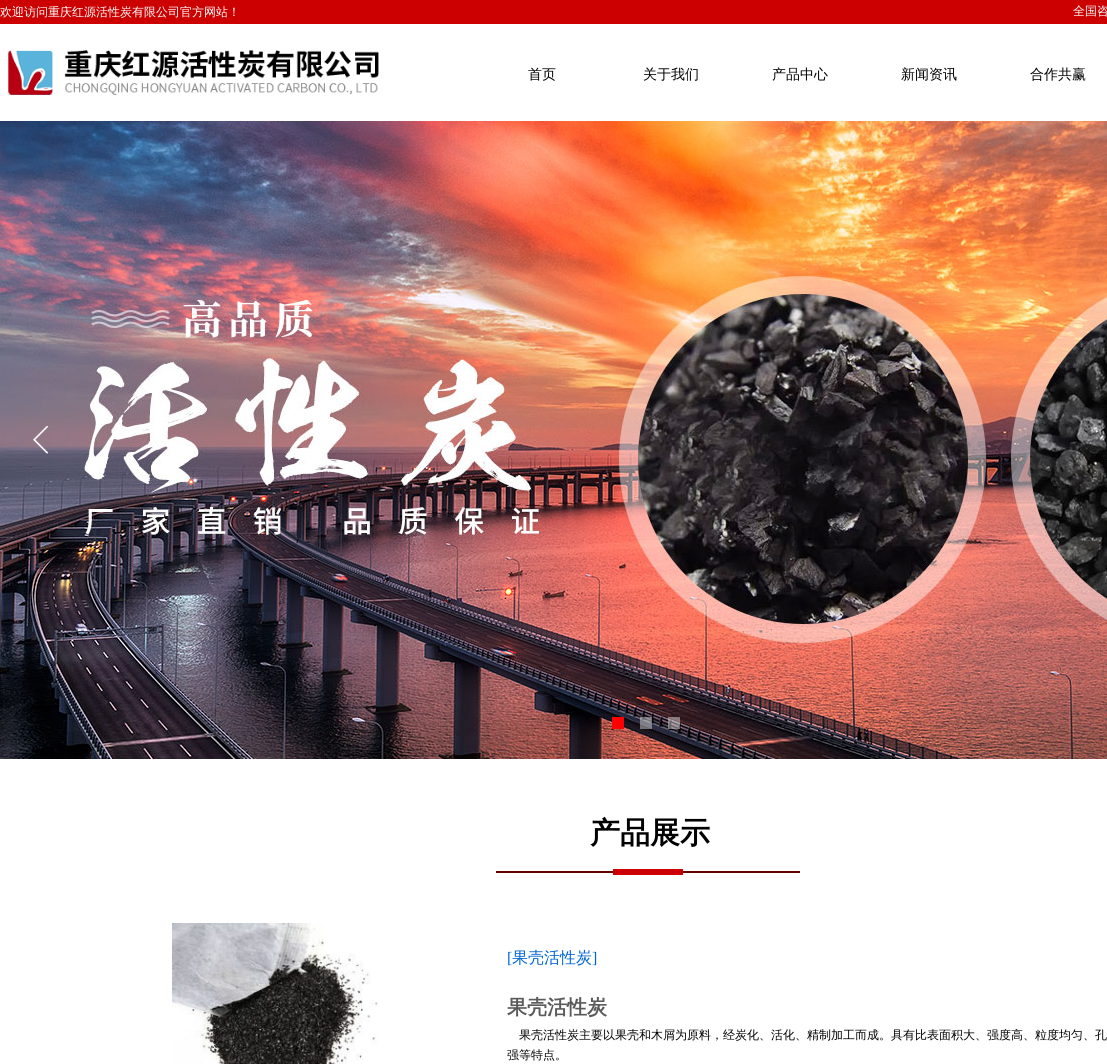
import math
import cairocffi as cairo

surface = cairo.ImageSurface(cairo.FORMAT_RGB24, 1107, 1064)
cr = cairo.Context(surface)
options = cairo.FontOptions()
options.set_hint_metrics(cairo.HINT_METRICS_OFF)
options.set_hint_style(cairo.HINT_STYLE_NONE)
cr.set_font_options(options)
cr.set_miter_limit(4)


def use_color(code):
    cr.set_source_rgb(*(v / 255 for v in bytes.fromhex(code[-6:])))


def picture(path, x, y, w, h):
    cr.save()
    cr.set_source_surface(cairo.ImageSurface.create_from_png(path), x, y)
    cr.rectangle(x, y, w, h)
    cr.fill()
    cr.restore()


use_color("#ffffff")
cr.paint()
use_color("#cc0000")
cr.rectangle(0, 0, 1107, 24)
cr.fill()
cr.select_font_face("WenQuanYi Zen Hei Medium")
cr.set_font_size(12)
use_color("#ffffff")
cr.move_to(0, 16)
cr.show_text("欢迎访问重庆红源活性炭有限公司官方网站！")
cr.move_to(1073, 15)
cr.show_text("全国咨")
picture("img1.png", 8, 50, 371, 45)
cr.set_font_size(14)
use_color("#000000")
cr.move_to(528, 79)
cr.show_text("首页")
cr.move_to(643, 79)
cr.show_text("关于我们")
cr.move_to(772, 79)
cr.show_text("产品中心")
cr.move_to(901, 79)
cr.show_text("新闻资讯")
cr.move_to(1030, 79)
cr.show_text("合作共赢")
picture("img2.png", 0, 121, 1107, 638)
picture("img3.png", 33, 425, 16, 29)
use_color("#ff0000")
cr.rectangle(612, 717, 12, 12)
cr.fill()
cr.set_source_rgba(1, 1, 1, 0.4)
cr.rectangle(640, 717, 12, 12)
cr.fill()
cr.rectangle(668, 717, 12, 12)
cr.fill()
cr.select_font_face("WenQuanYi Zen Hei", cairo.FONT_SLANT_NORMAL, cairo.FONT_WEIGHT_BOLD)
cr.set_font_size(30)
use_color("#000000")
cr.move_to(590, 843)
cr.show_text("产品展示")
use_color("#660000")
cr.rectangle(496, 871, 304, 2)
cr.fill()
use_color("#cc0000")
cr.rectangle(613, 869, 70, 6)
cr.fill()
picture("img4.png", 172, 923, 206, 141)
cr.select_font_face("Liberation Serif")
cr.set_font_size(16)
use_color("#0064d4")
cr.move_to(507, 963)
cr.show_text("[")
cr.select_font_face("WenQuanYi Zen Hei Medium")
cr.move_to(512, 963)
cr.show_text("果壳活性炭")
cr.select_font_face("Liberation Serif")
cr.move_to(592, 963)
cr.show_text("]")
cr.select_font_face("WenQuanYi Zen Hei", cairo.FONT_SLANT_NORMAL, cairo.FONT_WEIGHT_BOLD)
cr.set_font_size(20)
use_color("#5a5a5a")
cr.move_to(507, 1014)
cr.show_text("果壳活性炭")
cr.select_font_face("WenQuanYi Zen Hei Medium")
cr.set_font_size(12)
use_color("#000000")
cr.move_to(519, 1039)
cr.show_text("果壳活性炭主要以果壳和木屑为原料，经炭化、活化、精制加工而成。具有比表面积大、强度高、粒度均匀、孔")
cr.move_to(507, 1059)
cr.show_text("强等特点。")
surface.write_to_png("result.png")
